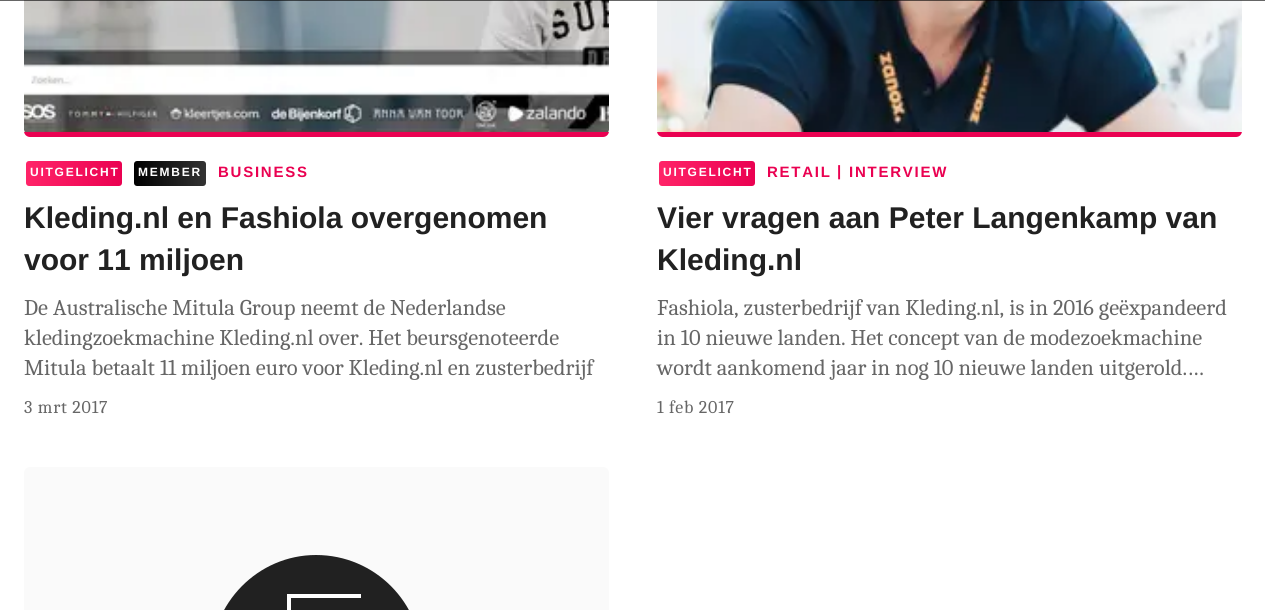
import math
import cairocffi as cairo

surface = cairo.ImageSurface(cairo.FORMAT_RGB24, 1265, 610)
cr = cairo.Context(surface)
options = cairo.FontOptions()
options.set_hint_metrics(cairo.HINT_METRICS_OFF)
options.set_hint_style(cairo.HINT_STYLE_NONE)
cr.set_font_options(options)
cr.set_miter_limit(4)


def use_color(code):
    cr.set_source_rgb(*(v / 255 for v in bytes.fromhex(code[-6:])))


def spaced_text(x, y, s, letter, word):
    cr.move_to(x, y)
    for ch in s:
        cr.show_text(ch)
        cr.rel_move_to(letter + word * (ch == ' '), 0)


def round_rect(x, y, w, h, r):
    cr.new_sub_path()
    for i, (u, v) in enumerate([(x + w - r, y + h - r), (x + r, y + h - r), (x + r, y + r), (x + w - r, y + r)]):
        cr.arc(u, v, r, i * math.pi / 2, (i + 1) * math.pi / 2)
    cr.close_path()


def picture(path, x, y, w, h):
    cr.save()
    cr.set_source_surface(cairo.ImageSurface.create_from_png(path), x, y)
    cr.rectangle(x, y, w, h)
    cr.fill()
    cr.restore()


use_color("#ffffff")
cr.paint()
picture("img1.png", 24, 0, 585, 133)
picture("img2.png", 657, 0, 585, 133)
cr.set_source_rgba(0, 0, 0, 0.6)
cr.rectangle(0, 0, 1265, 1)
cr.fill()
cr.save()
round_rect(24, -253, 585, 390, 6)
cr.clip()
use_color("#ea0151")
cr.rectangle(24, 132, 585, 5)
cr.fill()
cr.restore()
gradient = cairo.LinearGradient(26, 173, 122, 173)
gradient.add_color_stop_rgba(0, 1, 0.141, 0.408, 1)
gradient.add_color_stop_rgba(1, 0.918, 0.004, 0.318, 1)
cr.set_source(gradient)
round_rect(26, 161, 96, 25, 3)
cr.fill()
cr.select_font_face("Liberation Sans", cairo.FONT_SLANT_NORMAL, cairo.FONT_WEIGHT_BOLD)
cr.set_font_size(12)
use_color("#ffffff")
spaced_text(30, 176, "UITGELICHT", 1.75, 0)
gradient = cairo.LinearGradient(134, 173, 206, 173)
gradient.add_color_stop_rgba(0, 0, 0, 0, 1)
gradient.add_color_stop_rgba(1, 0.2, 0.2, 0.2, 1)
cr.set_source(gradient)
round_rect(134, 161, 72, 25, 3)
cr.fill()
use_color("#ffffff")
spaced_text(138, 176, "MEMBER", 1.75, 0)
cr.set_font_size(15)
use_color("#ea0151")
spaced_text(218, 177, "BUSINESS", 1.75, 0)
cr.set_font_size(30)
use_color("#212121")
cr.move_to(24, 228)
cr.show_text("Kleding.nl en Fashiola overgenomen")
cr.move_to(24, 270)
cr.show_text("voor 11 miljoen")
cr.select_font_face("Caladea")
cr.set_font_size(22.5)
use_color("#666666")
cr.move_to(24, 315)
cr.show_text("De Australische Mitula Group neemt de Nederlandse")
cr.move_to(24, 345)
cr.show_text("kledingzoekmachine Kleding.nl over. Het beursgenoteerde")
cr.move_to(24, 375)
cr.show_text("Mitula betaalt 11 miljoen euro voor Kleding.nl en zusterbedrijf")
cr.set_font_size(18)
spaced_text(24, 413, "3 mrt 2017", 0.75, 0)
cr.save()
round_rect(657, -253, 585, 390, 6)
cr.clip()
use_color("#ea0151")
cr.rectangle(657, 132, 585, 5)
cr.fill()
cr.restore()
gradient = cairo.LinearGradient(659, 173, 755, 173)
gradient.add_color_stop_rgba(0, 1, 0.141, 0.408, 1)
gradient.add_color_stop_rgba(1, 0.918, 0.004, 0.318, 1)
cr.set_source(gradient)
round_rect(659, 161, 96, 25, 3)
cr.fill()
cr.select_font_face("Liberation Sans", cairo.FONT_SLANT_NORMAL, cairo.FONT_WEIGHT_BOLD)
cr.set_font_size(12)
use_color("#ffffff")
spaced_text(663, 176, "UITGELICHT", 1.75, 0)
cr.set_font_size(15)
use_color("#ea0151")
spaced_text(767, 177, "RETAIL", 1.75, 0)
spaced_text(837, 176, "|", 1.75, 0)
spaced_text(849, 177, "INTERVIEW", 1.75, 0)
cr.set_font_size(30)
use_color("#212121")
cr.move_to(657, 228)
cr.show_text("Vier vragen aan Peter Langenkamp van")
cr.move_to(657, 270)
cr.show_text("Kleding.nl")
cr.select_font_face("Caladea")
cr.set_font_size(22.5)
use_color("#666666")
cr.move_to(657, 315)
cr.show_text("Fashiola, zusterbedrijf van Kleding.nl, is in 2016 geëxpandeerd")
cr.move_to(657, 345)
cr.show_text("in 10 nieuwe landen. Het concept van de modezoekmachine")
cr.move_to(657, 375)
cr.show_text("wordt aankomend jaar in nog 10 nieuwe landen uitgerold.…")
cr.set_font_size(18)
spaced_text(657, 413, "1 feb 2017", 0.75, 0)
use_color("#fafafa")
round_rect(24, 467, 585, 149, 6)
cr.fill()
use_color("#212121")
cr.new_path()
cr.move_to(316, 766)
cr.curve_to(375, 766, 422, 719, 422, 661)
cr.curve_to(422, 603, 375, 555, 316, 555)
cr.curve_to(258, 555, 211, 603, 211, 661)
cr.curve_to(211, 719, 258, 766, 316, 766)
cr.close_path()
cr.fill()
use_color("#ffffff")
cr.new_path()
cr.move_to(361, 594)
cr.line_to(361, 598)
cr.line_to(291, 598)
cr.line_to(291, 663)
cr.line_to(354, 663)
cr.line_to(354, 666)
cr.line_to(291, 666)
cr.line_to(291, 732)
cr.line_to(287, 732)
cr.line_to(287, 594)
cr.close_path()
cr.fill()
surface.write_to_png("result.png")
